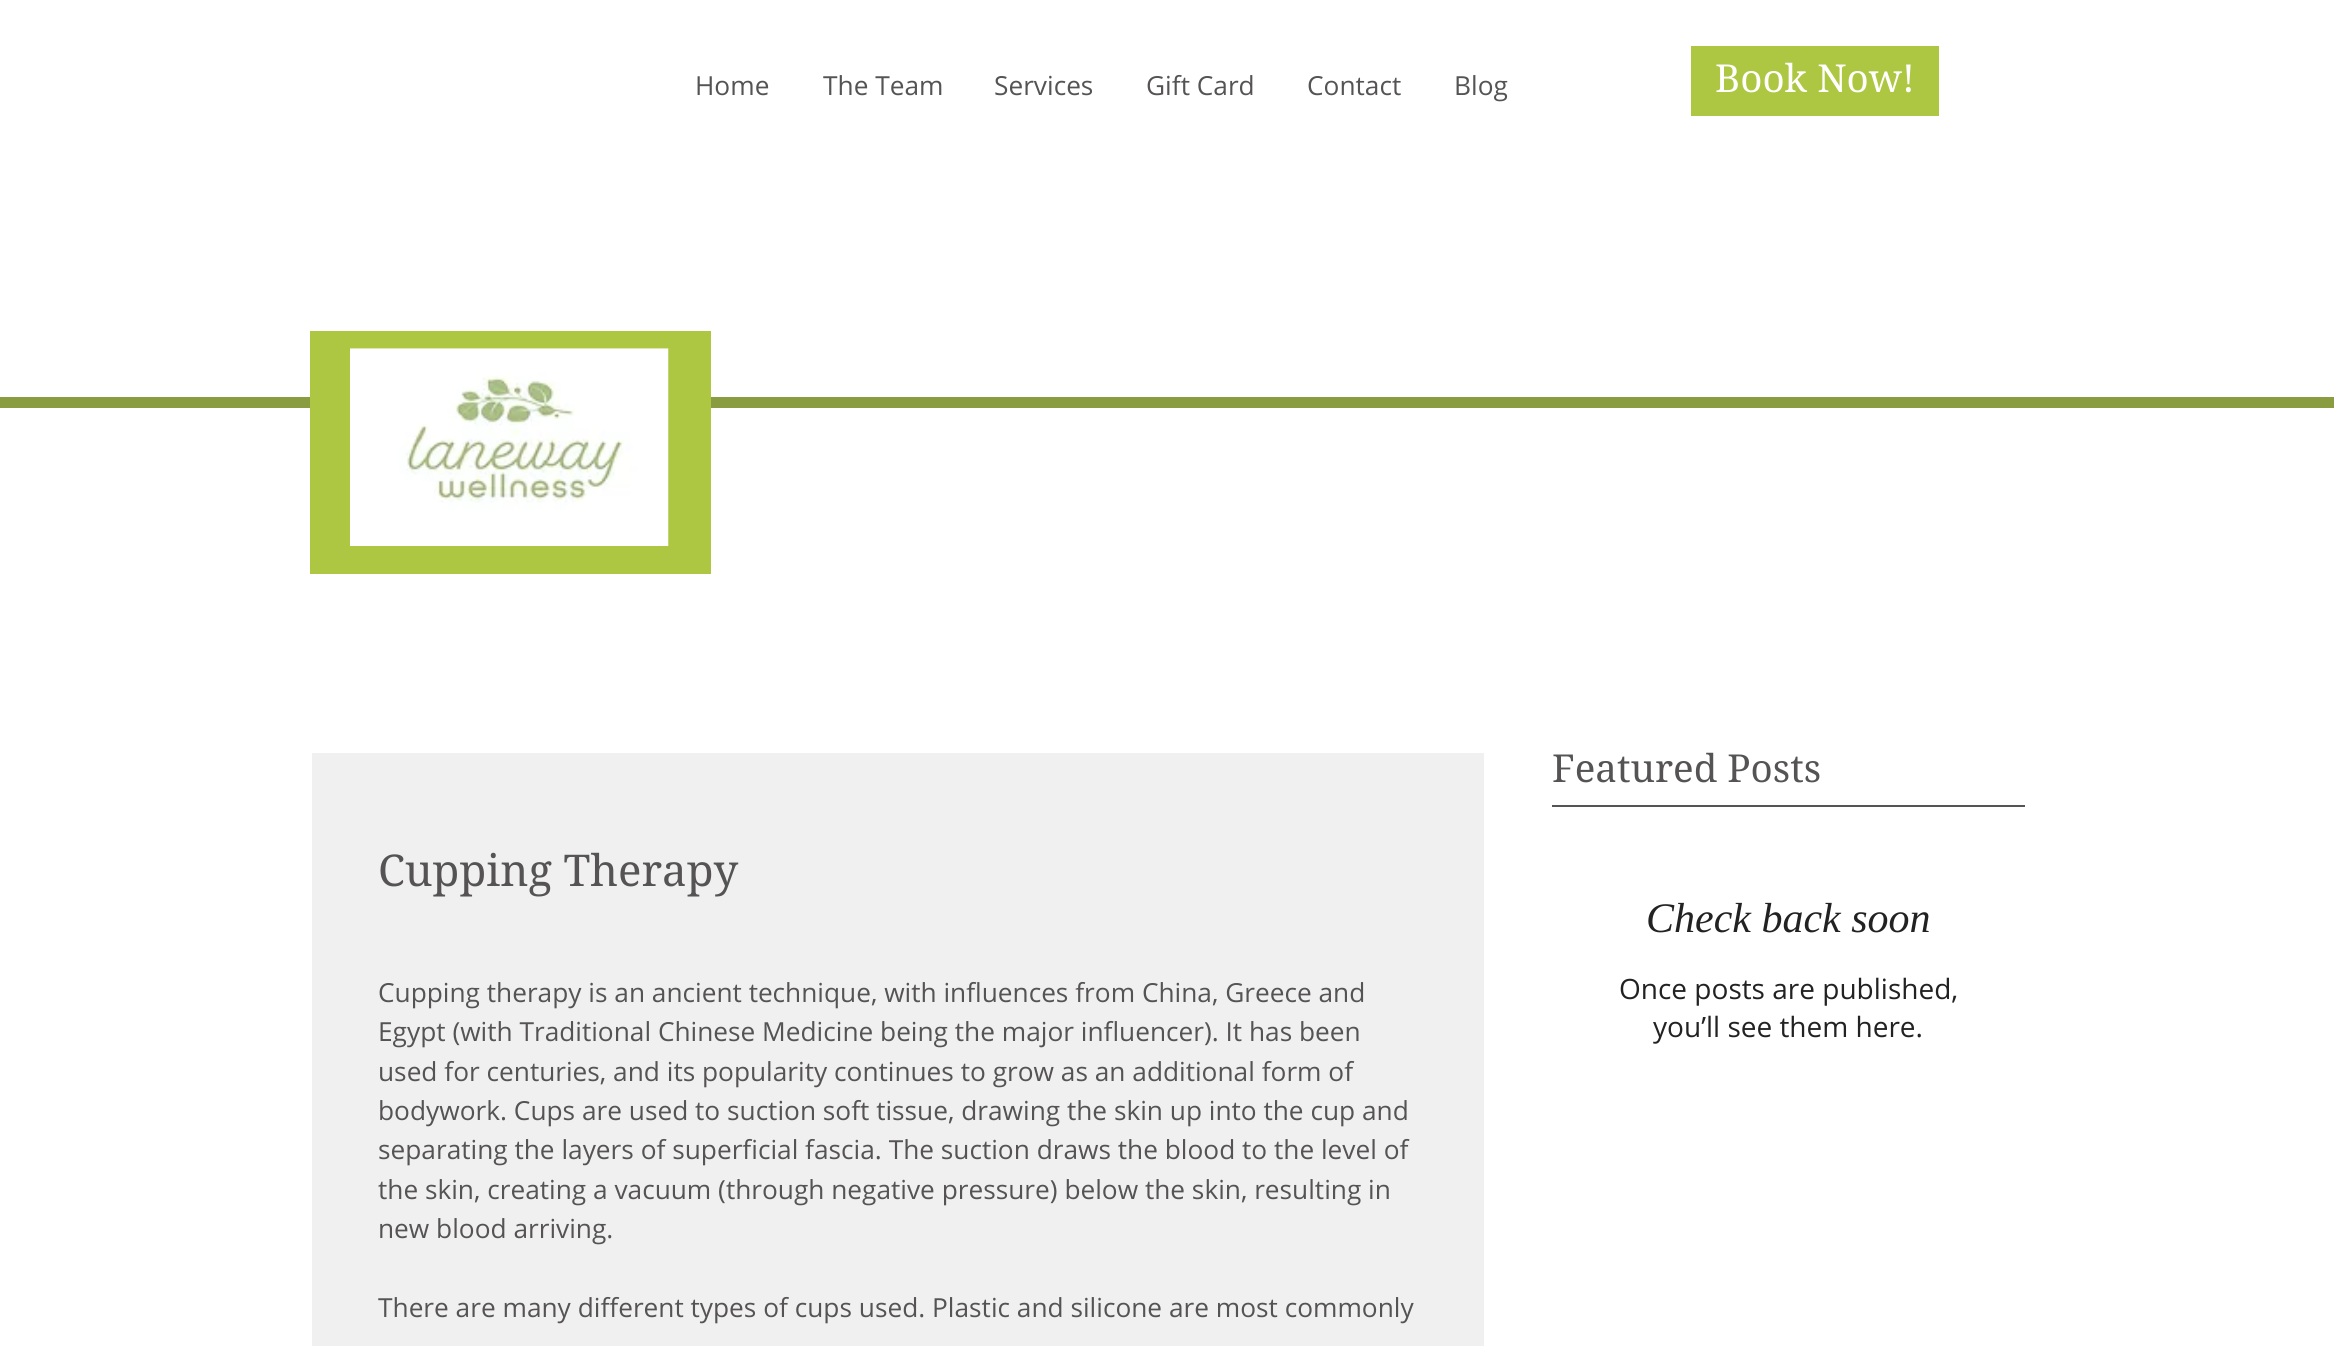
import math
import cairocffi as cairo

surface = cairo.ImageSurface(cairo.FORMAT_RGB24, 2334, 1346)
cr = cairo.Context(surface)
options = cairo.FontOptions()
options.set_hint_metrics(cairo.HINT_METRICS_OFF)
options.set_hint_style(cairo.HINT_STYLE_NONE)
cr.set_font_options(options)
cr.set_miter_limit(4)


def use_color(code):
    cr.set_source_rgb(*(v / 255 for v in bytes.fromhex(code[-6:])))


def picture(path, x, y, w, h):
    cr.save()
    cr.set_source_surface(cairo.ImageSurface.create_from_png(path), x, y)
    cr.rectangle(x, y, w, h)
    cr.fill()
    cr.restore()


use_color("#ffffff")
cr.paint()
cr.select_font_face("Open Sans")
cr.set_font_size(26.25)
use_color("#555353")
cr.move_to(695, 95)
cr.show_text("Home")
cr.move_to(823, 95)
cr.show_text("The Team")
cr.move_to(994, 95)
cr.show_text("Services")
cr.move_to(1146, 95)
cr.show_text("Gift Card")
cr.move_to(1307, 95)
cr.show_text("Contact")
cr.move_to(1454, 95)
cr.show_text("Blog")
use_color("#adc743")
cr.rectangle(1691, 46, 248, 70)
cr.fill()
cr.select_font_face("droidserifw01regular")
cr.set_font_size(38.5)
use_color("#ffffff")
cr.move_to(1715, 92)
cr.show_text("Book Now!")
use_color("#899c40")
cr.rectangle(0, 397, 2334, 11)
cr.fill()
use_color("#adc743")
cr.rectangle(310, 331, 401, 243)
cr.fill()
picture("img1.png", 350, 348, 319, 198)
use_color("#555353")
cr.move_to(1552, 782)
cr.show_text("Featured Posts")
cr.rectangle(1552, 805, 473, 2)
cr.fill()
use_color("#f0f0f0")
cr.rectangle(312, 753, 1172, 593)
cr.fill()
cr.set_font_size(43.75)
use_color("#555353")
cr.move_to(378, 886)
cr.show_text("Cupping Therapy")
cr.select_font_face("Open Sans")
cr.set_font_size(26.25)
cr.move_to(378, 1002)
cr.show_text("Cupping therapy is an ancient technique, with influences from China, Greece and")
cr.move_to(378, 1041)
cr.show_text("Egypt (with Traditional Chinese Medicine being the major influencer). It has been")
cr.move_to(378, 1081)
cr.show_text("used for centuries, and its popularity continues to grow as an additional form of")
cr.move_to(378, 1120)
cr.show_text("bodywork. Cups are used to suction soft tissue, drawing the skin up into the cup and")
cr.move_to(378, 1159)
cr.show_text("separating the layers of superficial fascia. The suction draws the blood to the level of")
cr.move_to(378, 1199)
cr.show_text("the skin, creating a vacuum (through negative pressure) below the skin, resulting in")
cr.move_to(378, 1238)
cr.show_text("new blood arriving.")
cr.move_to(378, 1317)
cr.show_text("There are many different types of cups used. Plastic and silicone are most commonly")
cr.select_font_face("Liberation Serif", cairo.FONT_SLANT_ITALIC)
cr.set_font_size(42)
use_color("#222222")
cr.move_to(1646, 932)
cr.show_text("Check back soon")
cr.select_font_face("Open Sans")
cr.set_font_size(28)
cr.move_to(1619, 999)
cr.show_text("Once posts are published,")
cr.move_to(1653, 1037)
cr.show_text("you’ll see them here.")
surface.write_to_png("result.png")
